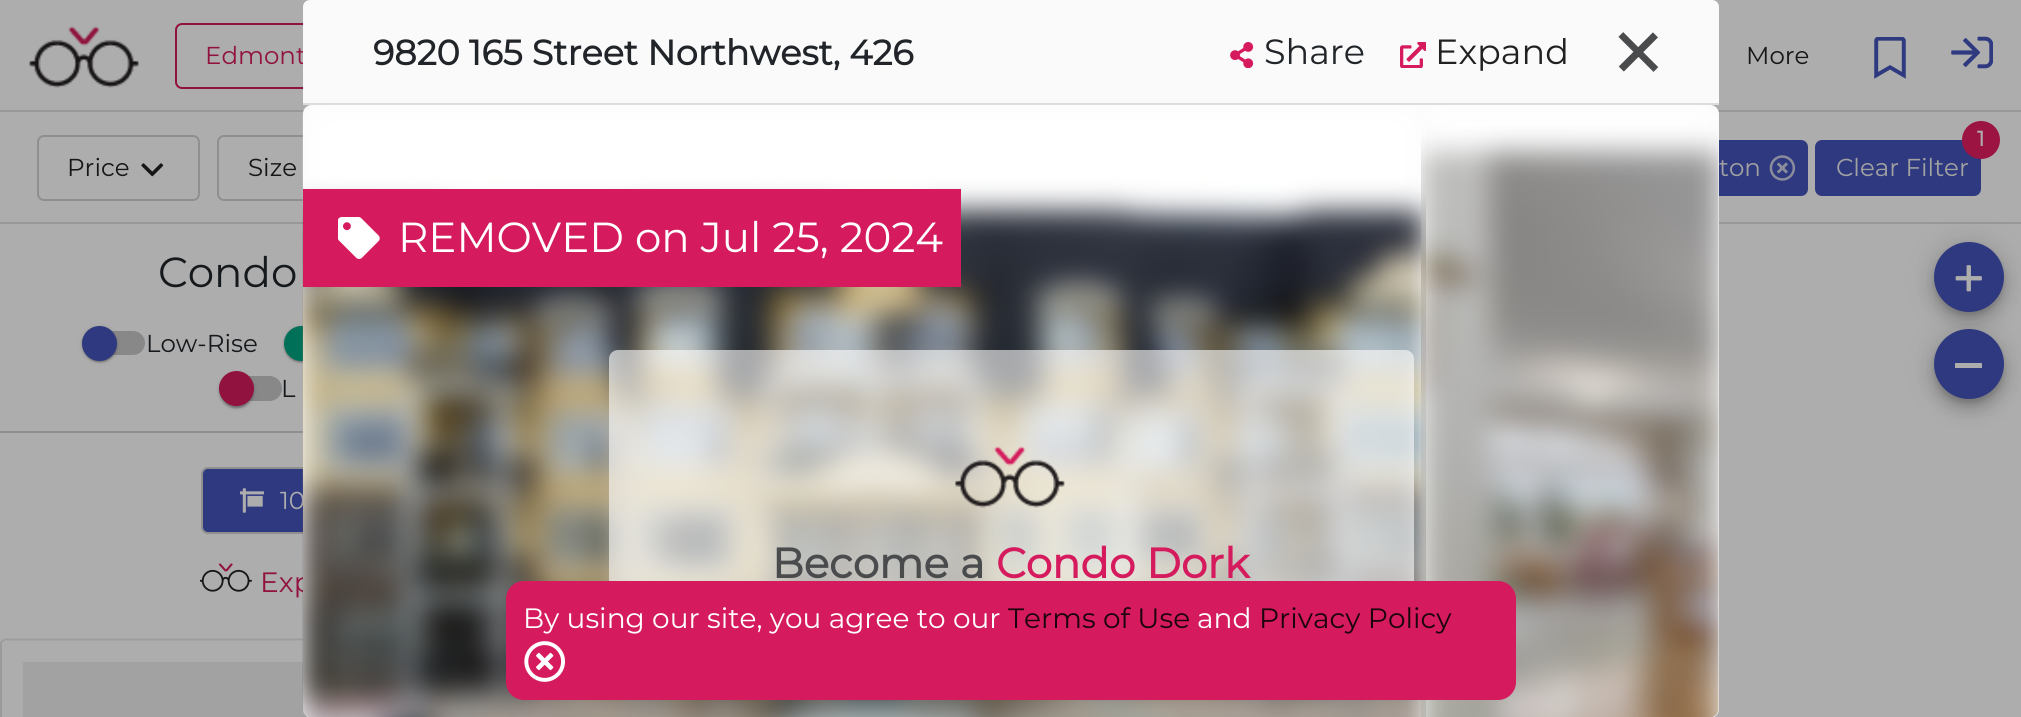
import math
import cairocffi as cairo

surface = cairo.ImageSurface(cairo.FORMAT_RGB24, 2021, 717)
cr = cairo.Context(surface)
options = cairo.FontOptions()
options.set_hint_metrics(cairo.HINT_METRICS_OFF)
options.set_hint_style(cairo.HINT_STYLE_NONE)
cr.set_font_options(options)
cr.set_miter_limit(4)


def use_color(code):
    cr.set_source_rgb(*(v / 255 for v in bytes.fromhex(code[-6:])))


def round_rect(x, y, w, h, r):
    cr.new_sub_path()
    for i, (u, v) in enumerate([(x + w - r, y + h - r), (x + r, y + h - r), (x + r, y + r), (x + w - r, y + r)]):
        cr.arc(u, v, r, i * math.pi / 2, (i + 1) * math.pi / 2)
    cr.close_path()


def shadow(x, y, w, h, r, blur, alpha):
    cr.push_group_with_content(cairo.CONTENT_ALPHA)
    cr.set_operator(cairo.OPERATOR_SOURCE)
    for i in range(15, -16, -2):
        e = blur * i / 6
        if min(w, h) + 2 * e > 0:
            cr.set_source_rgba(0, 0, 0, alpha * math.erfc((i - 1) / 8.5) / 2)
            round_rect(x - e, y - e, w + 2 * e, h + 2 * e, max(0, min(r + e + blur * .6, min(w, h) / 2 + e)))
            cr.fill()
    cr.mask(cr.pop_group())


def picture(path, x, y, w, h):
    cr.save()
    cr.set_source_surface(cairo.ImageSurface.create_from_png(path), x, y)
    cr.rectangle(x, y, w, h)
    cr.fill()
    cr.restore()


use_color("#adadad")
cr.paint()
round_rect(176, 24, 240, 64, 6)
use_color("#91123f")
cr.stroke()
cr.select_font_face("Montserrat Thin")
cr.set_font_size(24.5)
cr.move_to(205, 64)
cr.show_text("Edmont")
use_color("#fafafa")
cr.new_path()
cr.move_to(310, 0)
cr.line_to(1712, 0)
cr.curve_to(1716, 0, 1719, 3, 1719, 7)
cr.line_to(1719, 105)
cr.line_to(303, 105)
cr.line_to(303, 7)
cr.curve_to(303, 3, 306, 0, 310, 0)
cr.close_path()
cr.fill()
use_color("#dddddd")
cr.rectangle(303, 103, 1416, 2)
cr.fill()
cr.select_font_face("Montserrat", cairo.FONT_SLANT_NORMAL, cairo.FONT_WEIGHT_BOLD)
cr.set_font_size(35)
use_color("#212529")
cr.move_to(373, 65)
cr.show_text("9820 165 Street Northwest, 426")
picture("img1.png", 1230, 42, 24, 26)
cr.select_font_face("Montserrat Thin")
cr.move_to(1264, 64)
cr.show_text("Share")
picture("img2.png", 1400, 42, 26, 26)
use_color("#212121")
cr.move_to(1435, 64)
cr.show_text("Expand")
cr.set_font_size(114)
use_color("#4a4b4d")
cr.save()
cr.translate(1587, 57)
cr.rotate(45 * math.pi / 180)
cr.move_to(0, 0)
cr.show_text("+")
cr.restore()
use_color("#989898")
cr.rectangle(0, 222, 2021, 2)
cr.fill()
round_rect(218, 136, 149, 64, 6)
use_color("#8f8f8f")
cr.stroke()
use_color("#2e3980")
round_rect(1607, 140, 201, 56, 7)
cr.fill()
use_color("#000000")
shadow(284, 327, 35, 35, 17.5, 2.5, 0.12)
shadow(284, 327, 35, 35, 17.5, 1, 0.14)
shadow(285, 331, 32, 31, 15.5, 1, 0.2)
use_color("#007058")
cr.arc(301.5, 343.5, 17.5, 0, 2 * math.pi)
cr.fill()
use_color("#2e3980")
round_rect(202, 468, 263, 65, 6)
cr.fill_preserve()
use_color("#8f8f8f")
cr.stroke()
cr.set_font_size(24.5)
use_color("#adadad")
cr.move_to(280, 509)
cr.show_text("10")
cr.set_font_size(28)
use_color("#91123f")
cr.move_to(260, 592)
cr.show_text("Exp")
cr.new_path()
cr.move_to(2, 641)
cr.line_to(5, 639.5)
cr.line_to(450, 639.5)
cr.line_to(453, 641)
use_color("#9c9c9e")
cr.set_line_width(1.8)
cr.stroke()
gradient = cairo.LinearGradient(-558, 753, 842, 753)
gradient.add_color_stop_rgba(0.08, 0.635, 0.635, 0.635, 1)
gradient.add_color_stop_rgba(0.18, 0.588, 0.588, 0.588, 1)
gradient.add_color_stop_rgba(0.33, 0.635, 0.635, 0.635, 1)
cr.set_source(gradient)
cr.rectangle(23, 662, 285, 55)
cr.fill()
use_color("#989898")
cr.rectangle(0, 110, 2021, 2)
cr.fill()
use_color("#fafafa")
round_rect(303, 105, 1416, 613, 9)
cr.fill()
use_color("#8f8f8f")
cr.rectangle(0, 431, 303, 2)
cr.fill()
picture("img3.png", 302, 105, 1124, 612)
picture("img4.png", 1421, 105, 298, 612)
use_color("#d51b5d")
cr.rectangle(303, 189, 658, 98)
cr.fill()
picture("img5.png", 338, 217, 42, 42)
cr.set_font_size(42)
use_color("#ffffff")
cr.move_to(398, 252)
cr.show_text("REMOVED on Jul 25, 2024")
cr.set_source_rgba(1, 1, 1, 0.6)
round_rect(609, 350, 805, 350, 9)
cr.fill()
picture("img6.png", 955, 446, 110, 62)
cr.select_font_face("Montserrat", cairo.FONT_SLANT_NORMAL, cairo.FONT_WEIGHT_BOLD)
use_color("#4a4b4d")
cr.move_to(772, 578)
cr.show_text("Become a")
use_color("#d51b5d")
cr.move_to(996, 578)
cr.show_text("Condo Dork")
round_rect(38, 136, 161, 64, 6)
use_color("#8f8f8f")
cr.set_line_width(2)
cr.stroke()
cr.select_font_face("Montserrat Thin")
cr.set_font_size(24.5)
use_color("#161616")
cr.move_to(67, 176)
cr.show_text("Price")
picture("img7.png", 141, 163, 23, 14)
cr.move_to(248, 176)
cr.show_text("Size")
use_color("#a2a2a2")
cr.move_to(1719, 176)
cr.show_text("ton")
picture("img8.png", 1769, 155, 27, 26)
use_color("#2e3980")
round_rect(1815, 140, 166, 56, 7)
cr.fill()
use_color("#a2a2a2")
cr.move_to(1836, 176)
cr.show_text("Clear Filter")
use_color("#9c1442")
cr.new_path()
cr.arc(1981, 140, 19, 0, 2 * math.pi)
cr.fill()
cr.select_font_face("Montserrat", cairo.FONT_SLANT_NORMAL, cairo.FONT_WEIGHT_BOLD)
cr.set_font_size(21)
use_color("#adadad")
cr.move_to(1977, 146)
cr.show_text("1")
cr.select_font_face("Montserrat Thin")
cr.set_font_size(42)
use_color("#16191c")
cr.move_to(158, 287)
cr.show_text("Condo")
use_color("#898888")
round_rect(82, 331, 63, 24, 12)
cr.fill()
use_color("#000000")
shadow(82, 327, 35, 35, 17.5, 2.5, 0.12)
shadow(82, 327, 35, 35, 17.5, 1, 0.14)
shadow(84, 331, 32, 31, 15.5, 1, 0.2)
use_color("#2e3980")
cr.arc(99.5, 343.5, 17.5, 0, 2 * math.pi)
cr.fill()
cr.set_font_size(24.5)
use_color("#16191c")
cr.move_to(146, 352)
cr.show_text("Low-Rise")
use_color("#898888")
round_rect(219, 376, 63, 25, 12.5)
cr.fill()
use_color("#000000")
shadow(219, 373, 35, 35, 17.5, 2.5, 0.12)
shadow(219, 373, 35, 35, 17.5, 1, 0.14)
shadow(221, 376, 31, 32, 15.5, 1, 0.2)
use_color("#91123f")
cr.arc(236.5, 388.5, 17.5, 0, 2 * math.pi)
cr.fill()
use_color("#16191c")
cr.move_to(281, 397)
cr.show_text("L")
picture("img9.png", 240, 488, 24, 25)
picture("img10.png", 200, 563, 52, 29)
cr.new_path()
cr.move_to(2, 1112.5)
cr.line_to(1, 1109.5)
cr.line_to(1, 643)
cr.line_to(2, 641)
use_color("#98989b")
cr.set_line_width(1.8)
cr.stroke()
use_color("#000000")
shadow(1934, 243, 70, 70, 35, 16, 0.12)
shadow(1934, 252, 70, 70, 35, 9, 0.14)
shadow(1936, 249, 66, 66, 33, 4.5, 0.2)
use_color("#2e3980")
cr.arc(1969, 277, 35, 0, 2 * math.pi)
cr.fill()
picture("img11.png", 1955, 265, 27, 27)
use_color("#000000")
shadow(1934, 331, 70, 70, 35, 16, 0.12)
shadow(1934, 340, 70, 70, 35, 9, 0.14)
shadow(1936, 336, 66, 67, 33, 4.5, 0.2)
use_color("#2e3980")
cr.arc(1969, 364, 35, 0, 2 * math.pi)
cr.fill()
use_color("#adadad")
cr.rectangle(1955, 363, 27, 5)
cr.fill()
picture("img12.png", 29, 26, 110, 62)
use_color("#161616")
cr.move_to(1746, 64)
cr.show_text("More")
picture("img13.png", 1874, 37, 32, 42)
picture("img14.png", 1951, 36, 42, 33)
use_color("#d51b5d")
round_rect(506, 581, 1010, 119, 18)
cr.fill()
cr.set_font_size(28)
use_color("#ffffff")
cr.move_to(523, 628)
cr.show_text("By using our site, you agree to our")
use_color("#1c040c")
cr.move_to(1008, 628)
cr.show_text("Terms of Use")
use_color("#ffffff")
cr.move_to(1197, 628)
cr.show_text("and")
use_color("#1c040c")
cr.move_to(1259, 628)
cr.show_text("Privacy Policy")
picture("img15.png", 524, 641, 41, 41)
surface.write_to_png("result.png")
